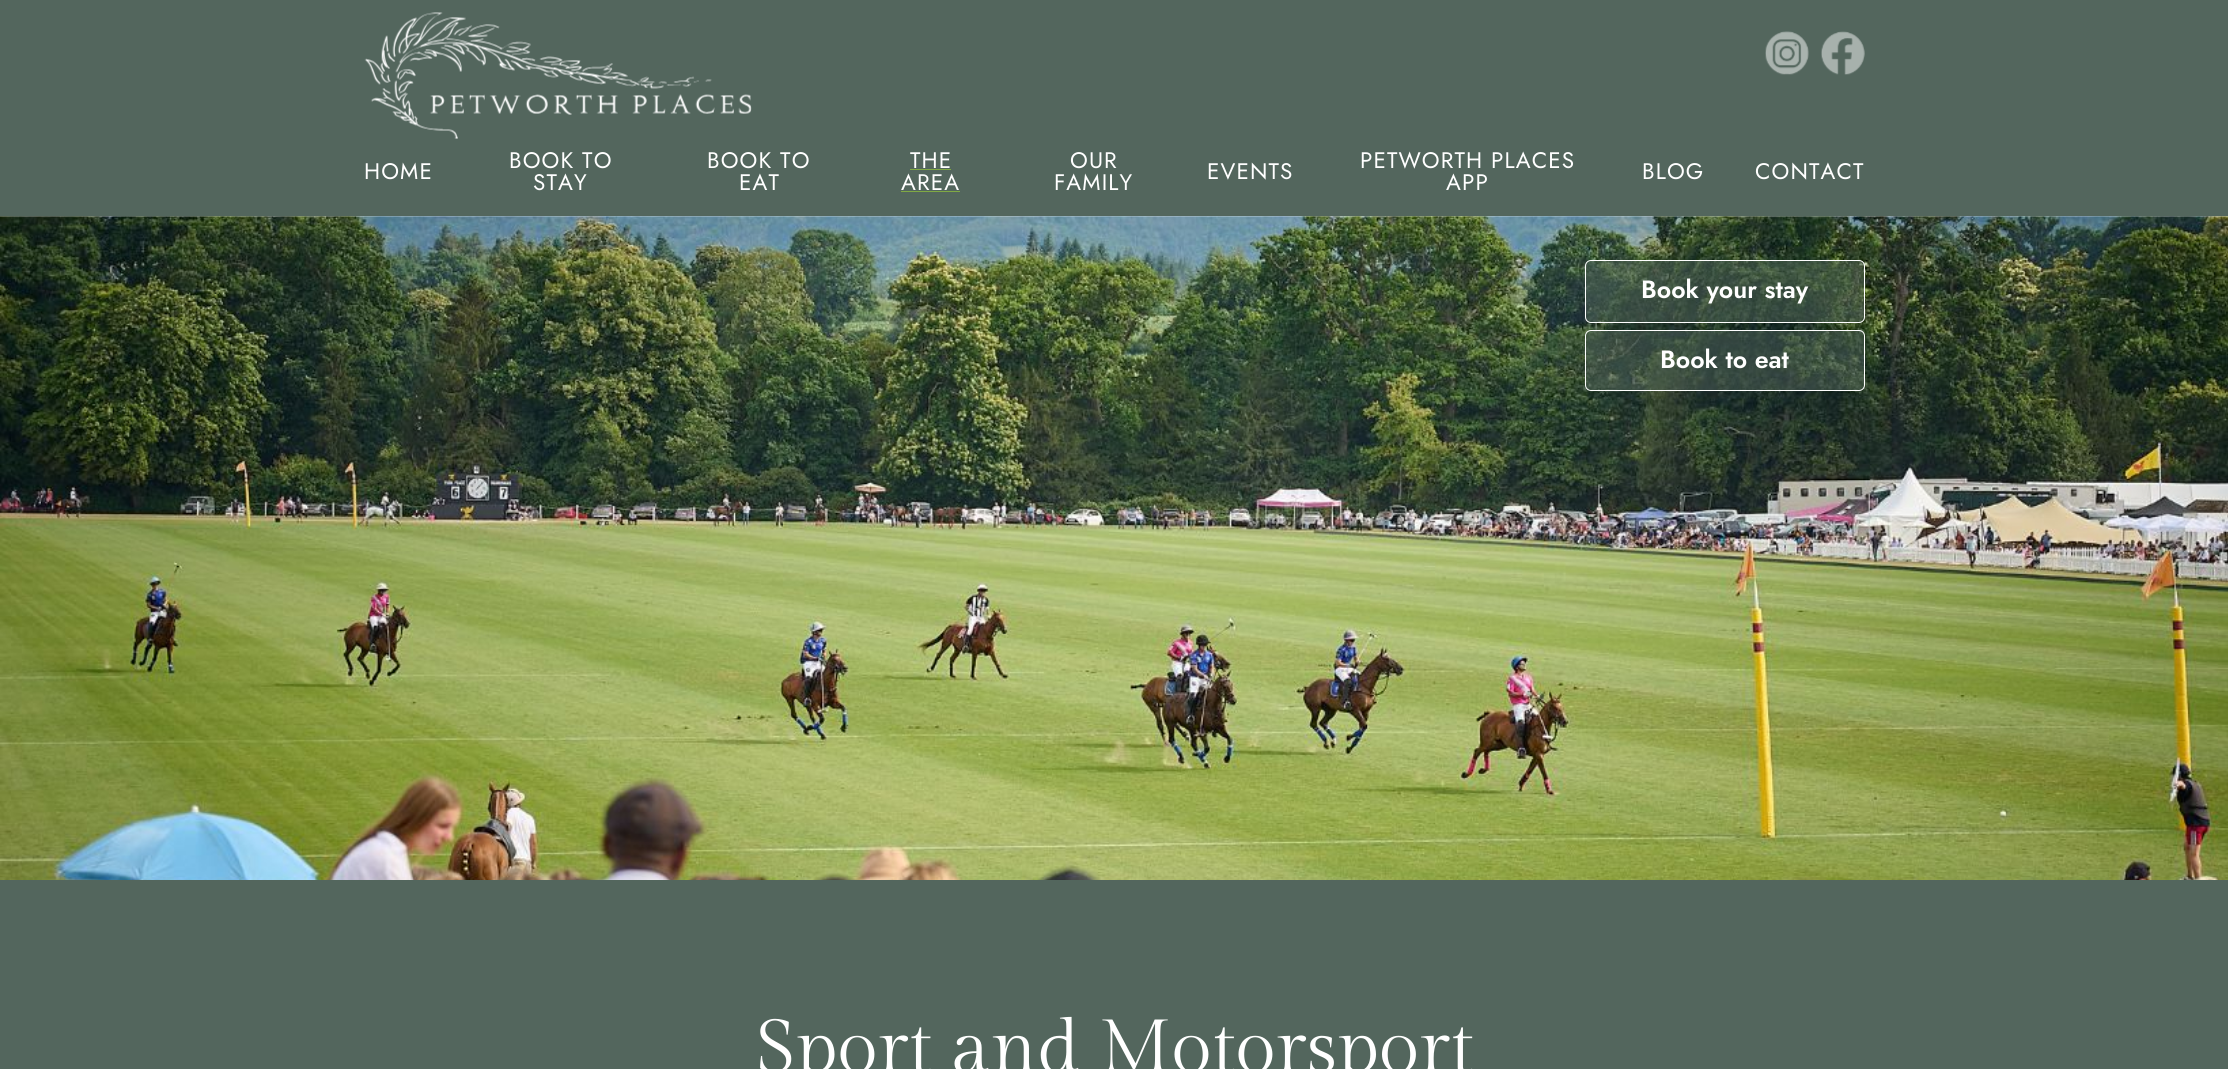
import math
import cairocffi as cairo

surface = cairo.ImageSurface(cairo.FORMAT_RGB24, 2228, 1069)
cr = cairo.Context(surface)
options = cairo.FontOptions()
options.set_hint_metrics(cairo.HINT_METRICS_OFF)
options.set_hint_style(cairo.HINT_STYLE_NONE)
cr.set_font_options(options)
cr.set_miter_limit(4)


def use_color(code):
    cr.set_source_rgb(*(v / 255 for v in bytes.fromhex(code[-6:])))


def spaced_text(x, y, s, letter, word):
    cr.move_to(x, y)
    for ch in s:
        cr.show_text(ch)
        cr.rel_move_to(letter + word * (ch == ' '), 0)


def round_rect(x, y, w, h, r):
    cr.new_sub_path()
    for i, (u, v) in enumerate([(x + w - r, y + h - r), (x + r, y + h - r), (x + r, y + r), (x + w - r, y + r)]):
        cr.arc(u, v, r, i * math.pi / 2, (i + 1) * math.pi / 2)
    cr.close_path()


def picture(path, x, y, w, h):
    cr.save()
    cr.set_source_surface(cairo.ImageSurface.create_from_png(path), x, y)
    cr.rectangle(x, y, w, h)
    cr.fill()
    cr.restore()


use_color("#ffffff")
cr.paint()
use_color("#53665d")
cr.rectangle(0, 0, 2228, 216)
cr.fill()
picture("img1.png", 364, 12, 388, 127)
picture("img2.png", 1765, 31, 44, 44)
picture("img3.png", 1821, 31, 44, 44)
cr.select_font_face("Jost")
cr.set_font_size(22.5)
use_color("#ffffff")
spaced_text(364, 179, "HOME", 1.1, 0)
spaced_text(509, 168, "BOOK TO", 1.1, 0)
spaced_text(533, 190, "STAY", 1.1, 0)
spaced_text(707, 168, "BOOK TO", 1.1, 0)
spaced_text(739, 190, "EAT", 1.1, 0)
spaced_text(910, 168, "THE", 1.1, 0)
use_color("#80a944")
cr.rectangle(910, 169, 41, 1)
cr.fill()
use_color("#ffffff")
spaced_text(901, 190, "AREA", 1.1, 0)
use_color("#80a944")
cr.rectangle(901, 191, 59, 1)
cr.fill()
use_color("#ffffff")
spaced_text(1070, 168, "OUR", 1.1, 0)
spaced_text(1054, 190, "FAMILY", 1.1, 0)
spaced_text(1207, 179, "EVENTS", 1.1, 0)
spaced_text(1360, 168, "PETWORTH PLACES", 1.1, 0)
spaced_text(1446, 190, "APP", 1.1, 0)
spaced_text(1642, 179, "BLOG", 1.1, 0)
spaced_text(1755, 179, "CONTACT", 1.1, 0)
picture("img4.png", 0, 216, 2228, 664)
cr.set_source_rgba(0.325, 0.4, 0.365, 0.47)
round_rect(1585.5, 260.5, 279, 62, 5.5)
cr.fill_preserve()
use_color("#ffffff")
cr.set_line_width(1)
cr.stroke()
cr.select_font_face("Jost SemiBold")
cr.set_font_size(25)
cr.move_to(1641, 298)
cr.show_text("Book your stay")
cr.set_source_rgba(0.325, 0.4, 0.365, 0.47)
round_rect(1585.5, 330.5, 279, 60, 5.5)
cr.fill_preserve()
use_color("#ffffff")
cr.stroke()
cr.move_to(1660, 368)
cr.show_text("Book to eat")
use_color("#53665d")
cr.rectangle(0, 880, 2228, 189)
cr.fill()
cr.select_font_face("Gilda Display")
cr.set_font_size(75)
use_color("#ffffff")
cr.move_to(756, 1072)
cr.show_text("Sport and Motorsport")
surface.write_to_png("result.png")
